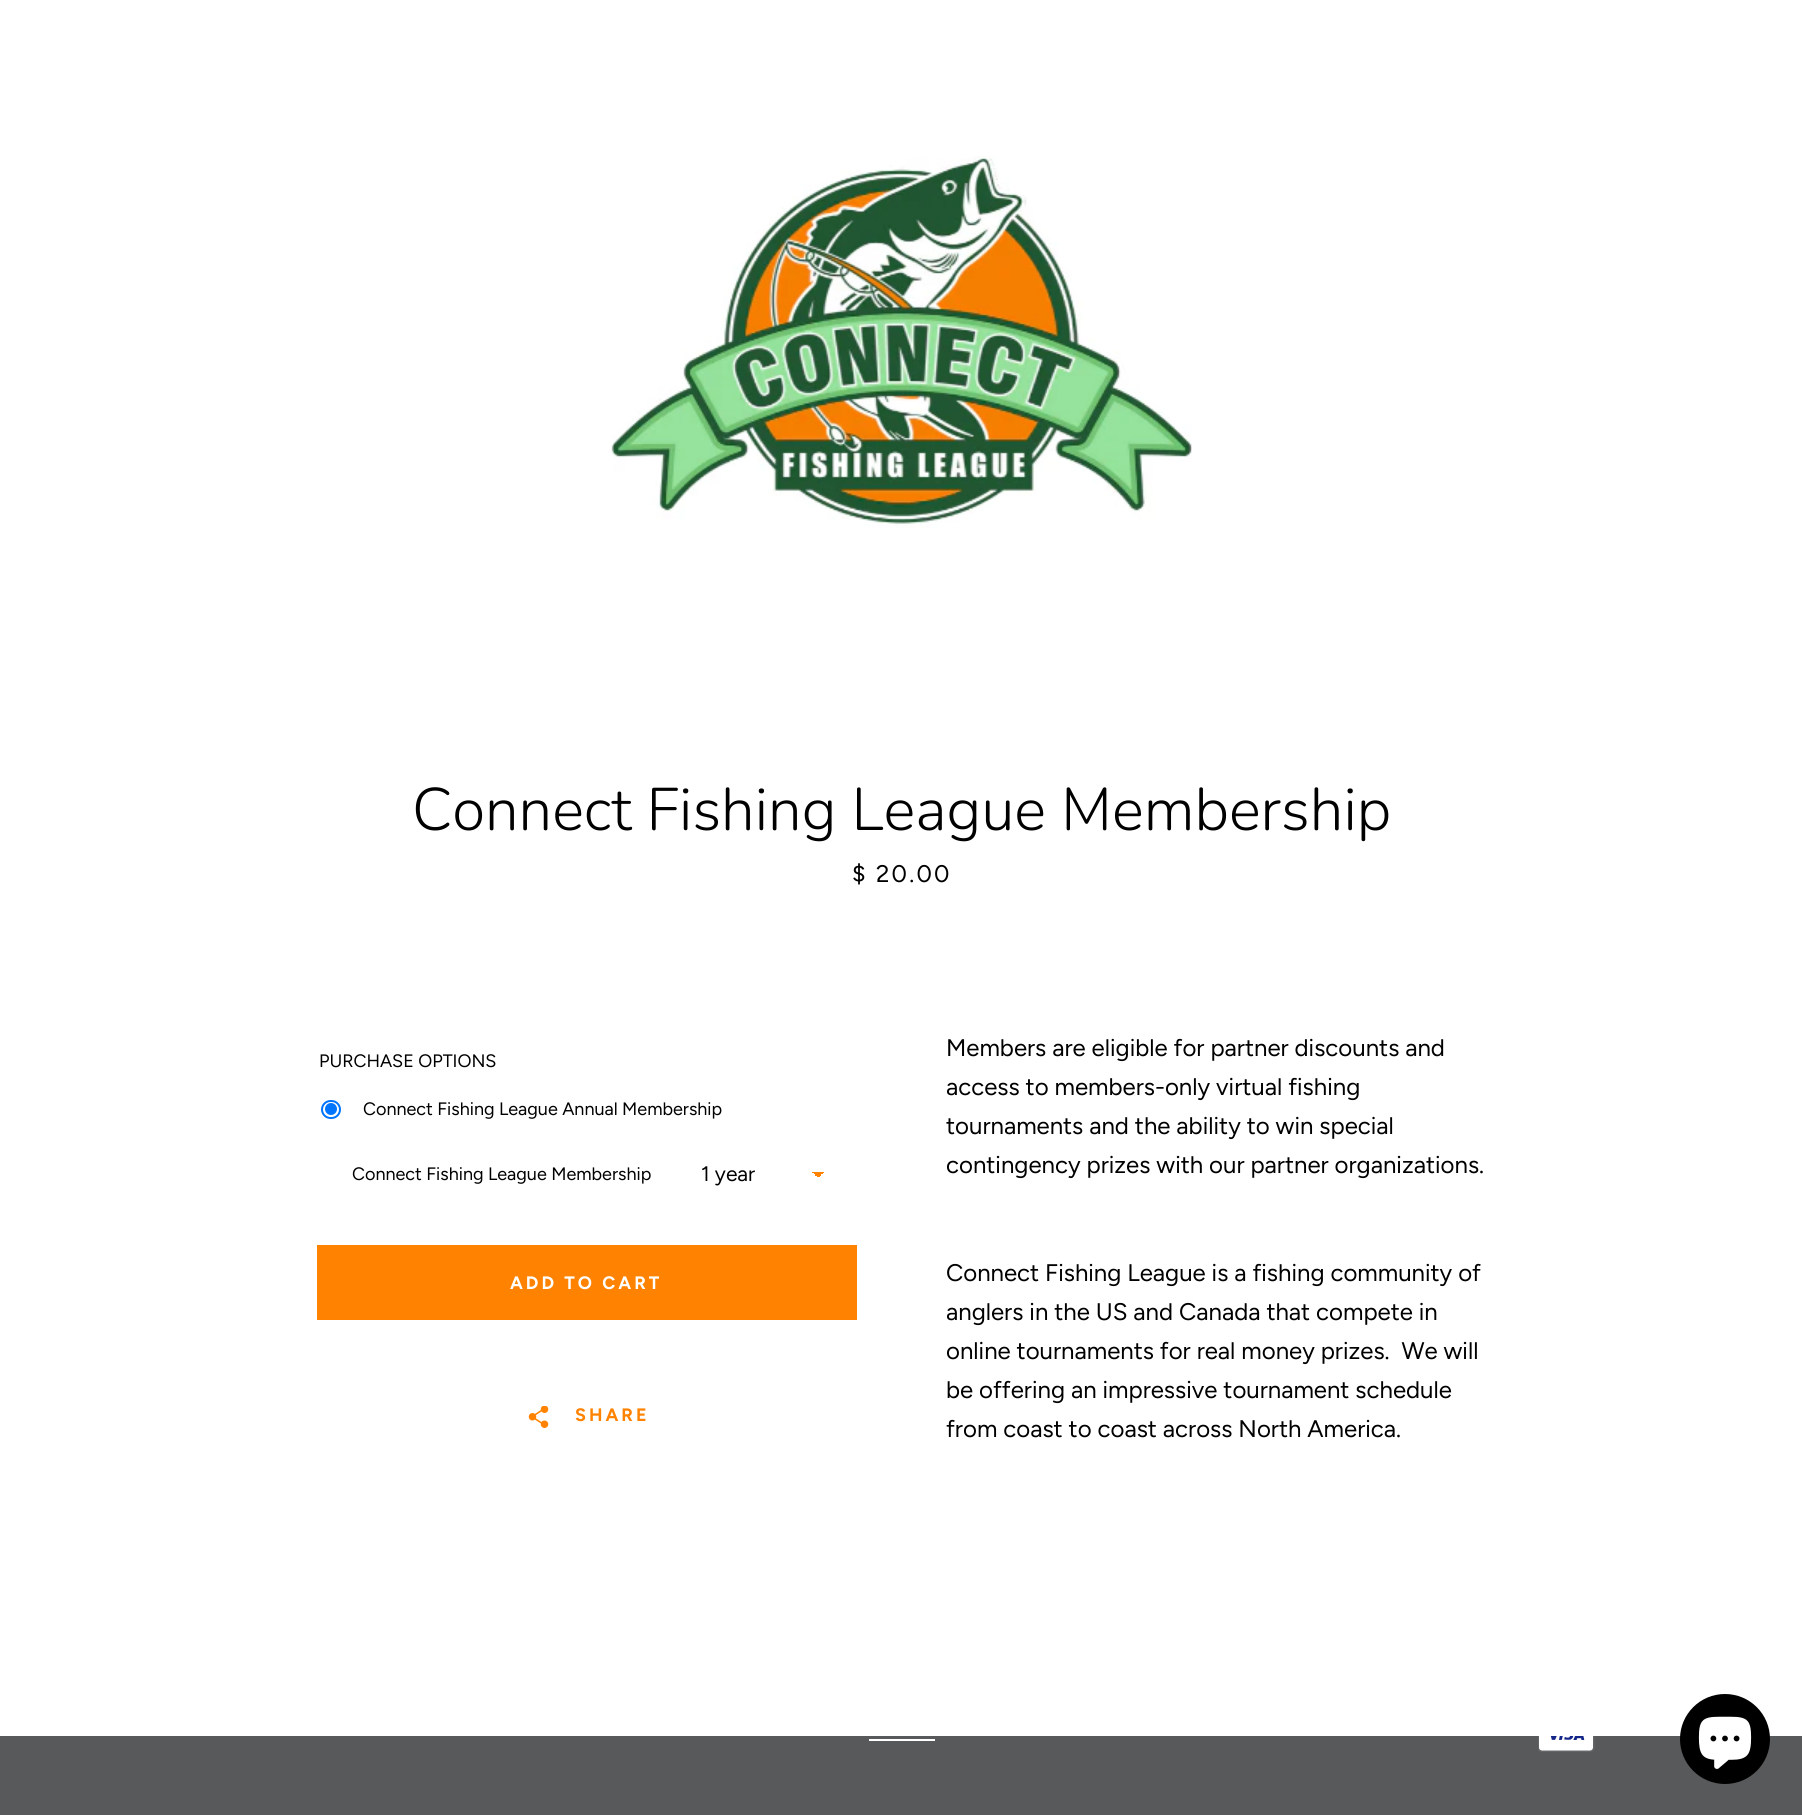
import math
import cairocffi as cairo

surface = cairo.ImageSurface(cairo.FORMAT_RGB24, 1802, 1815)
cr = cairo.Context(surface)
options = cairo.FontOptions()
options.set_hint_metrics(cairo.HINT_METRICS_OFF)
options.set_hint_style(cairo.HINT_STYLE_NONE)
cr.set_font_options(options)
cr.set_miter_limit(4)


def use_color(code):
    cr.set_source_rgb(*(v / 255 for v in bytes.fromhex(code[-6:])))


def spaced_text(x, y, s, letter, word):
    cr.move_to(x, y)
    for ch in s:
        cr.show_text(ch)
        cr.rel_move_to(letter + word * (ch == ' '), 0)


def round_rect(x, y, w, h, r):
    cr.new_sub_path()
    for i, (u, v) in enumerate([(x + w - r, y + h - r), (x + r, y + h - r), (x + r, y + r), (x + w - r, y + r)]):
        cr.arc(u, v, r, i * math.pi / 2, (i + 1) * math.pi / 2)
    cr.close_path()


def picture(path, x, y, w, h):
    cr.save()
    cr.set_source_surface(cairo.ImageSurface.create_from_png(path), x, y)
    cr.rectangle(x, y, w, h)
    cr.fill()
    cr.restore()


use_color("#ffffff")
cr.paint()
picture("img1.png", 611, 156, 581, 372)
cr.select_font_face("Nunito Light")
cr.set_font_size(60)
use_color("#000000")
cr.move_to(412, 830)
cr.show_text("Connect Fishing League Membership")
cr.select_font_face("Figtree")
cr.set_font_size(24)
spaced_text(852, 882, "$ 20.00", 2.25, 0)
cr.set_font_size(18)
cr.move_to(319, 1067)
cr.show_text("PURCHASE OPTIONS")
round_rect(322, 1101, 18, 17, 8.5)
use_color("#0075ff")
cr.stroke()
cr.arc(331, 1109, 6, 0, 2 * math.pi)
cr.fill()
use_color("#000000")
cr.move_to(363, 1115)
cr.show_text("Connect Fishing League Annual Membership")
cr.move_to(352, 1180)
cr.show_text("Connect Fishing League Membership")
gradient = cairo.LinearGradient(818, 1172, 824, 1178)
gradient.add_color_stop_rgba(0.5, 1, 0.51, 0, 1)
gradient.add_color_stop_rgba(0.5, 1, 1, 1, 1)
cr.set_source(gradient)
cr.rectangle(818, 1172, 6, 5)
cr.fill()
gradient = cairo.LinearGradient(812, 1178, 818, 1172)
gradient.add_color_stop_rgba(0.5, 1, 1, 1, 1)
gradient.add_color_stop_rgba(0.5, 1, 0.51, 0, 1)
cr.set_source(gradient)
cr.rectangle(812, 1172, 6, 5)
cr.fill()
cr.set_font_size(21)
use_color("#000000")
cr.move_to(701, 1181)
cr.show_text("1 year")
use_color("#ff8200")
cr.rectangle(317, 1245, 540, 75)
cr.fill()
cr.select_font_face("Figtree", cairo.FONT_SLANT_NORMAL, cairo.FONT_WEIGHT_BOLD)
cr.set_font_size(18)
use_color("#ffffff")
spaced_text(510, 1289, "ADD TO CART", 3, 0)
picture("img2.png", 528, 1406, 21, 22)
use_color("#ff8200")
spaced_text(575, 1421, "SHARE", 3, 0)
cr.select_font_face("Figtree")
cr.set_font_size(24)
use_color("#000000")
cr.move_to(946, 1056)
cr.show_text("Members are eligible for partner discounts and")
cr.move_to(946, 1095)
cr.show_text("access to members-only virtual fishing")
cr.move_to(946, 1134)
cr.show_text("tournaments and the ability to win special")
cr.move_to(946, 1173)
cr.show_text("contingency prizes with our partner organizations.")
cr.move_to(946, 1281)
cr.show_text("Connect Fishing League is a fishing community of")
cr.move_to(946, 1320)
cr.show_text("anglers in the US and Canada that compete in")
cr.move_to(946, 1359)
cr.show_text("online tournaments for real money prizes.  We will")
cr.move_to(946, 1398)
cr.show_text("be offering an impressive tournament schedule")
cr.move_to(946, 1437)
cr.show_text("from coast to coast across North America.")
use_color("#58595b")
cr.rectangle(0, 1736, 1802, 79)
cr.fill()
use_color("#ffffff")
cr.rectangle(869, 1739, 66, 2)
cr.fill()
picture("img3.png", 1538, 1736, 57, 16)
use_color("#000000")
cr.arc(1725, 1739, 45, 0, 2 * math.pi)
cr.fill()
picture("img4.png", 1698, 1716, 54, 53)
surface.write_to_png("result.png")
